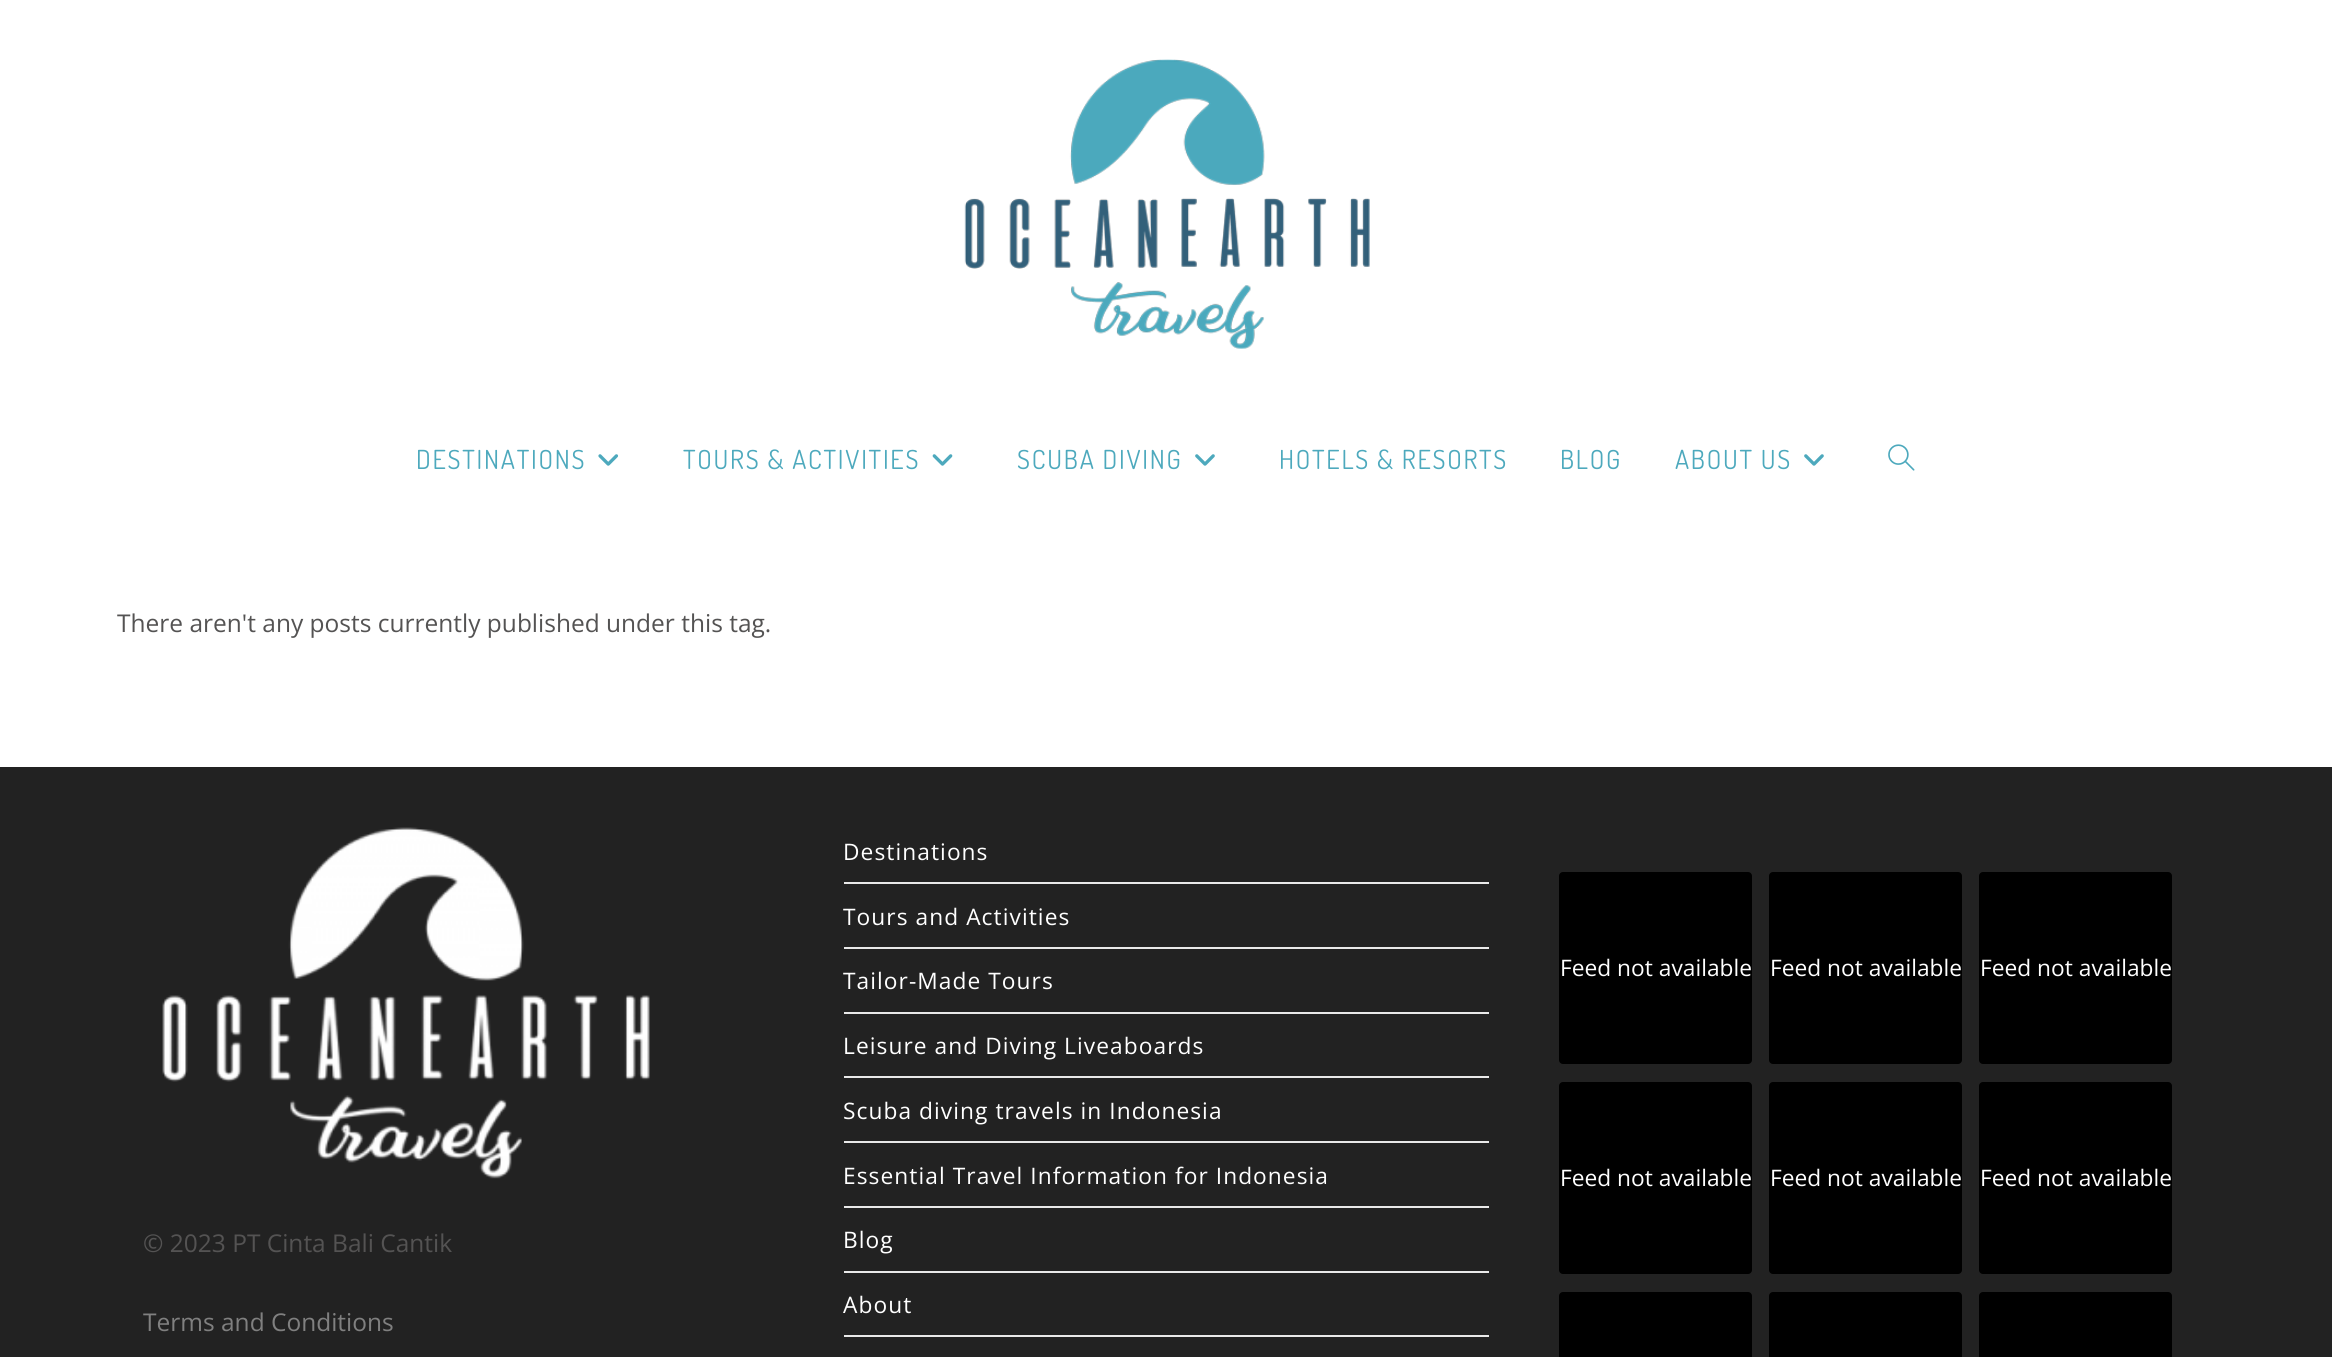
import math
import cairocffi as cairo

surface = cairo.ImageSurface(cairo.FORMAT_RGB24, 2332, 1357)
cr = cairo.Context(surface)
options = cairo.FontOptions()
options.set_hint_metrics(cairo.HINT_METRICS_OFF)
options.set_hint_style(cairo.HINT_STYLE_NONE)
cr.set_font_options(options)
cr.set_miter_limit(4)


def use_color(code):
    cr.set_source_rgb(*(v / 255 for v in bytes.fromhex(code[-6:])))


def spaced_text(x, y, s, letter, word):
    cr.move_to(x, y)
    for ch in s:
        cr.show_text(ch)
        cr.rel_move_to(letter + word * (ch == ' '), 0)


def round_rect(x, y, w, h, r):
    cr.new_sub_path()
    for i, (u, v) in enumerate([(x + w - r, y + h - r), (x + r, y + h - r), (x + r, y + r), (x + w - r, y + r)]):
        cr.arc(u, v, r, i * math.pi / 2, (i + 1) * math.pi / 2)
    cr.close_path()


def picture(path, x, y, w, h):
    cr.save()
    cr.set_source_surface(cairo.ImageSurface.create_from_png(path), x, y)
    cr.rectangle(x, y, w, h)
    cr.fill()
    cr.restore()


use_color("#ffffff")
cr.paint()
picture("img1.png", 964, 59, 406, 290)
cr.select_font_face("Dosis")
cr.set_font_size(26.25)
use_color("#4da9bd")
spaced_text(416, 469, "DESTINATIONS", 1.75, 0)
picture("img2.png", 598, 454, 21, 12)
spaced_text(683, 469, "TOURS & ACTIVITIES", 1.75, 0)
picture("img3.png", 932, 454, 21, 12)
spaced_text(1017, 469, "SCUBA DIVING", 1.75, 0)
picture("img4.png", 1195, 454, 20, 12)
spaced_text(1279, 469, "HOTELS & RESORTS", 1.75, 0)
spaced_text(1560, 469, "BLOG", 1.75, 0)
spaced_text(1675, 469, "ABOUT US", 1.75, 0)
picture("img4.png", 1804, 454, 20, 12)
picture("img5.png", 1888, 444, 27, 27)
cr.select_font_face("Open Sans")
cr.set_font_size(24.5)
use_color("#545353")
cr.move_to(117, 632)
cr.show_text("There aren't any posts currently published under this tag.")
use_color("#222222")
cr.rectangle(0, 767, 2332, 590)
cr.fill()
use_color("#e9e9e9")
cr.rectangle(844, 882, 645, 2)
cr.fill()
cr.set_font_size(22.75)
use_color("#ffffff")
spaced_text(843, 860, "Destinations", 1.05, 0)
use_color("#e9e9e9")
cr.rectangle(844, 947, 645, 2)
cr.fill()
use_color("#ffffff")
spaced_text(843, 925, "Tours and Activities", 1.05, 0)
use_color("#e9e9e9")
cr.rectangle(844, 1012, 645, 2)
cr.fill()
use_color("#ffffff")
spaced_text(843, 989, "Tailor-Made Tours", 1.05, 0)
use_color("#e9e9e9")
cr.rectangle(844, 1076, 645, 2)
cr.fill()
use_color("#ffffff")
spaced_text(843, 1054, "Leisure and Diving Liveaboards", 1.05, 0)
use_color("#e9e9e9")
cr.rectangle(844, 1141, 645, 2)
cr.fill()
use_color("#ffffff")
spaced_text(843, 1119, "Scuba diving travels in Indonesia", 1.05, 0)
use_color("#e9e9e9")
cr.rectangle(844, 1206, 645, 2)
cr.fill()
use_color("#ffffff")
spaced_text(843, 1184, "Essential Travel Information for Indonesia", 1.05, 0)
use_color("#e9e9e9")
cr.rectangle(844, 1271, 645, 2)
cr.fill()
use_color("#ffffff")
spaced_text(843, 1248, "Blog", 1.05, 0)
use_color("#e9e9e9")
cr.rectangle(844, 1335, 645, 2)
cr.fill()
use_color("#ffffff")
spaced_text(843, 1313, "About", 1.05, 0)
use_color("#000000")
round_rect(1559, 872, 193, 192, 4)
cr.fill()
use_color("#ffffff")
cr.move_to(1560, 976)
cr.show_text("Feed not available")
use_color("#000000")
round_rect(1769, 872, 193, 192, 4)
cr.fill()
use_color("#ffffff")
cr.move_to(1770, 976)
cr.show_text("Feed not available")
use_color("#000000")
round_rect(1979, 872, 193, 192, 4)
cr.fill()
use_color("#ffffff")
cr.move_to(1980, 976)
cr.show_text("Feed not available")
use_color("#000000")
round_rect(1559, 1082, 193, 192, 4)
cr.fill()
use_color("#ffffff")
cr.move_to(1560, 1186)
cr.show_text("Feed not available")
use_color("#000000")
round_rect(1769, 1082, 193, 192, 4)
cr.fill()
use_color("#ffffff")
cr.move_to(1770, 1186)
cr.show_text("Feed not available")
use_color("#000000")
round_rect(1979, 1082, 193, 192, 4)
cr.fill()
use_color("#ffffff")
cr.move_to(1980, 1186)
cr.show_text("Feed not available")
use_color("#000000")
round_rect(1559, 1292, 193, 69, 4)
cr.fill()
round_rect(1769, 1292, 193, 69, 4)
cr.fill()
round_rect(1979, 1292, 193, 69, 4)
cr.fill()
picture("img6.png", 162, 827, 488, 352)
cr.set_font_size(24.5)
use_color("#545353")
cr.move_to(143, 1252)
cr.show_text("© 2023 PT Cinta Bali Cantik")
use_color("#808080")
cr.move_to(143, 1331)
cr.show_text("Terms and Conditions")
surface.write_to_png("result.png")
